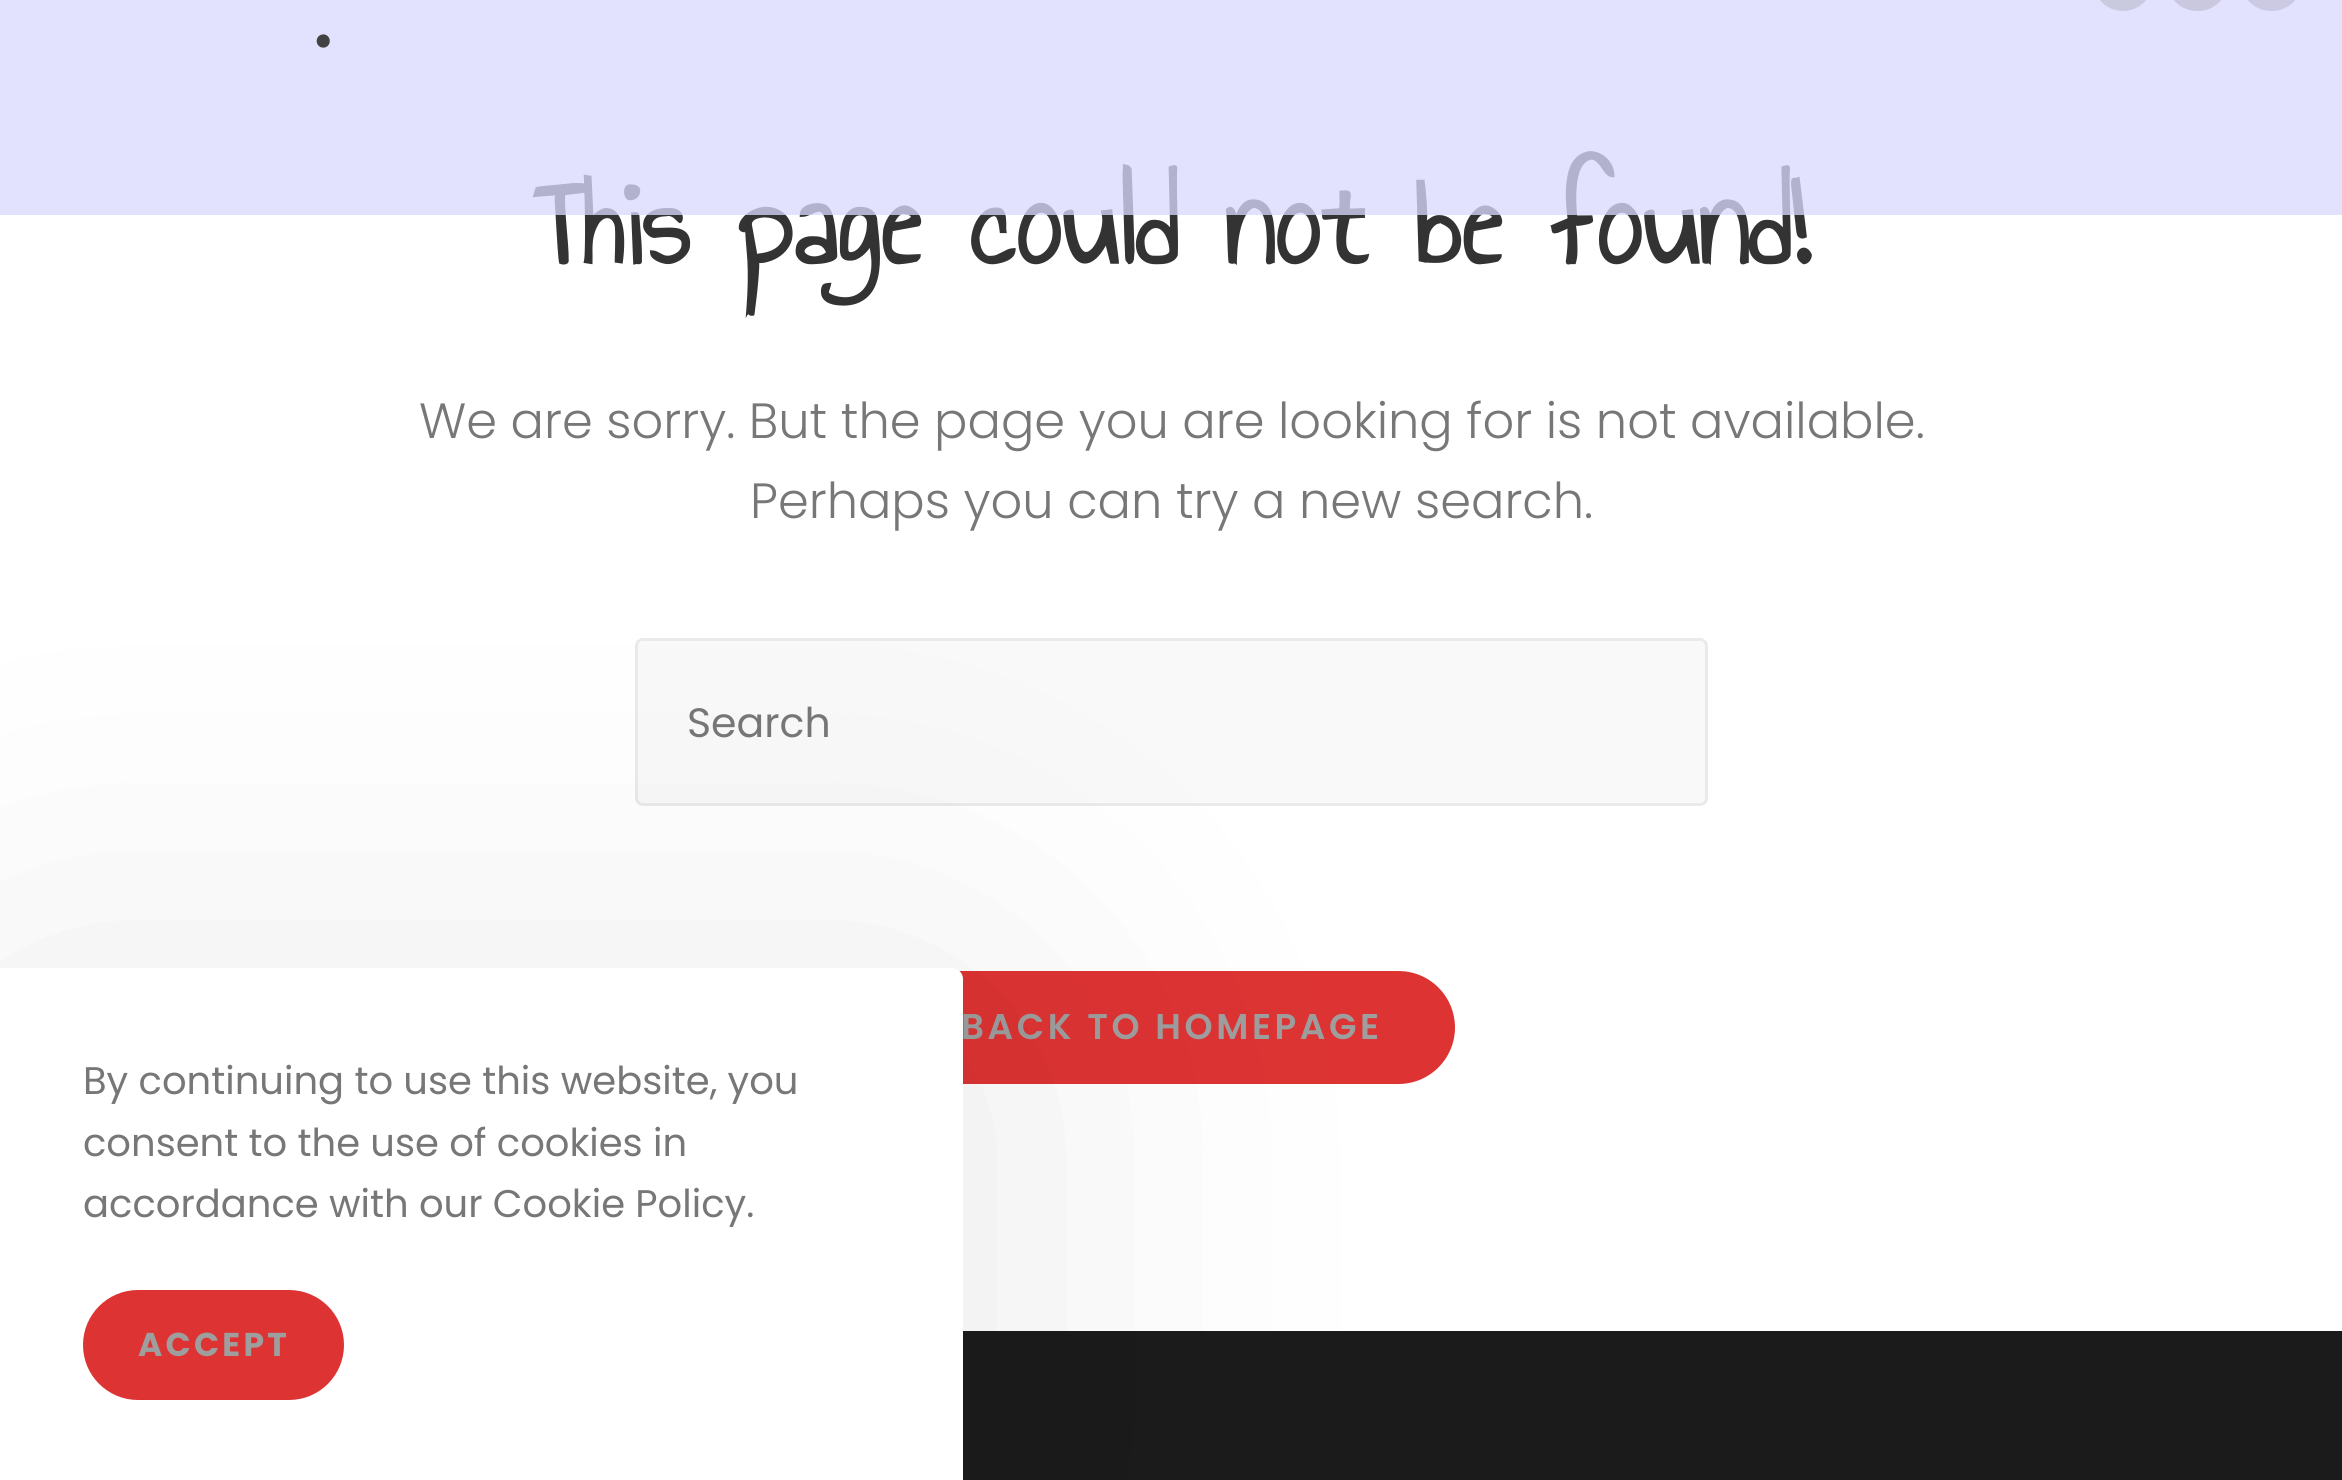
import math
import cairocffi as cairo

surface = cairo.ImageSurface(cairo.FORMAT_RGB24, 2342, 1480)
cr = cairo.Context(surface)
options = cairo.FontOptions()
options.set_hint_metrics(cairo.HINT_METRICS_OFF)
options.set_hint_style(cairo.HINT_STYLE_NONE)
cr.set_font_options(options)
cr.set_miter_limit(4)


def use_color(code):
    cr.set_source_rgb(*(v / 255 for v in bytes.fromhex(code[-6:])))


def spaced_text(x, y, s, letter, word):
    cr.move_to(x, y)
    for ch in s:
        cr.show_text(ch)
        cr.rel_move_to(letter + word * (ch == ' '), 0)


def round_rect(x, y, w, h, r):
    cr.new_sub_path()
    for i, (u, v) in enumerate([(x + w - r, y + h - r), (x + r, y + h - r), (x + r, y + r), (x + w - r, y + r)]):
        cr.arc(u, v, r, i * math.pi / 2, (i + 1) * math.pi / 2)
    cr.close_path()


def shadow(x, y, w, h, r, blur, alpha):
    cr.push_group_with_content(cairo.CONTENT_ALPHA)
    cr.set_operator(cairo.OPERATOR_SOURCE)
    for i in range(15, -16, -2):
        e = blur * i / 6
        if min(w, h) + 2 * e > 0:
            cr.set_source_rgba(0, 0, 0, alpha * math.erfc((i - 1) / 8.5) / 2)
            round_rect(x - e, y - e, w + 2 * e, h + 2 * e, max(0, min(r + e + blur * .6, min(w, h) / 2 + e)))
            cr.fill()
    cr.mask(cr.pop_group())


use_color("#ffffff")
cr.paint()
cr.select_font_face("Annie Use Your Telescope", cairo.FONT_SLANT_NORMAL, cairo.FONT_WEIGHT_BOLD)
cr.set_font_size(126.5)
use_color("#333333")
cr.move_to(533, 264)
cr.show_text("This page could not be found!")
cr.set_source_rgba(0.8, 0.8, 1, 0.71)
cr.rectangle(0, 0, 2342, 215)
cr.fill()
cr.set_source_rgba(1, 0.984, 0.984, 0.19)
cr.rectangle(0, 0, 2342, 215)
cr.fill()
use_color("#cacade")
round_rect(2093, -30, 60, 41, 30)
cr.fill()
use_color("#c9c8de")
round_rect(2167, -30, 61, 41, 30)
cr.fill()
use_color("#cbcae2")
round_rect(2241, -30, 61, 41, 30)
cr.fill()
cr.select_font_face("Poppins")
cr.set_font_size(107)
use_color("#424242")
cr.move_to(312, 47)
cr.show_text(".")
cr.select_font_face("Poppins Light")
cr.set_font_size(49.5)
use_color("#777777")
cr.move_to(419, 438)
cr.show_text("We are sorry. But the page you are looking for is not available.")
cr.move_to(750, 518)
cr.show_text("Perhaps you can try a new search.")
use_color("#f9f9f9")
round_rect(636.5, 639.5, 1070, 165, 6.5)
cr.fill_preserve()
use_color("#eaeaea")
cr.set_line_width(3)
cr.stroke()
cr.select_font_face("Poppins")
cr.set_font_size(41)
use_color("#777777")
cr.move_to(687, 737)
cr.show_text("Search")
use_color("#dd3333")
round_rect(888, 971, 567, 113, 56.5)
cr.fill()
cr.select_font_face("Poppins SemiBold")
cr.set_font_size(35.75)
use_color("#9e9e9e")
spaced_text(961, 1039, "BACK TO HOMEPAGE", 3.6, 0)
use_color("#1b1b1b")
cr.rectangle(963, 1331, 1379, 149)
cr.fill()
use_color("#000000")
shadow(0, 1023, 963, 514, 11, 206, 0.1)
use_color("#ffffff")
cr.new_path()
cr.move_to(0, 968)
cr.line_to(952, 968)
cr.curve_to(958, 968, 963, 973, 963, 979)
cr.line_to(963, 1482)
cr.line_to(0, 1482)
cr.close_path()
cr.fill()
cr.select_font_face("Poppins")
cr.set_font_size(38.5)
use_color("#777777")
cr.move_to(83, 1094)
cr.show_text("By continuing to use this website, you")
cr.move_to(83, 1156)
cr.show_text("consent to the use of cookies in")
cr.move_to(83, 1217)
cr.show_text("accordance with our Cookie Policy.")
use_color("#dd3333")
round_rect(83, 1290, 261, 110, 55)
cr.fill()
cr.select_font_face("Poppins", cairo.FONT_SLANT_NORMAL, cairo.FONT_WEIGHT_BOLD)
cr.set_font_size(33)
use_color("#9e9e9e")
spaced_text(138, 1356, "ACCEPT", 3.25, 0)
surface.write_to_png("result.png")
